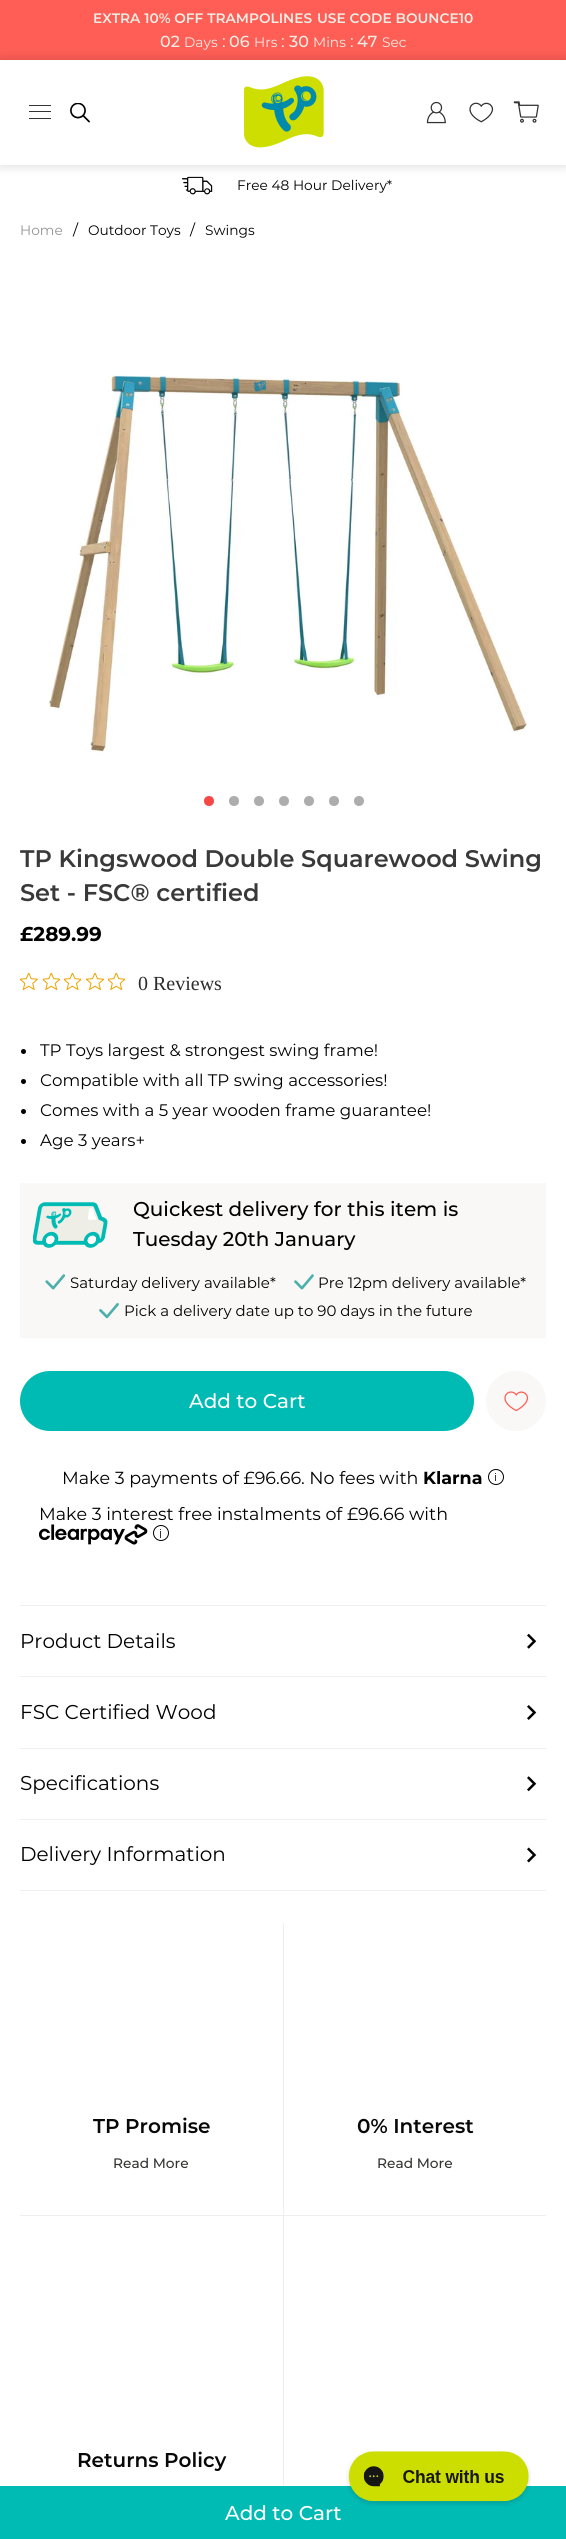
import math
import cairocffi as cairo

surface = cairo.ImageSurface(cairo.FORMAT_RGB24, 566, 2539)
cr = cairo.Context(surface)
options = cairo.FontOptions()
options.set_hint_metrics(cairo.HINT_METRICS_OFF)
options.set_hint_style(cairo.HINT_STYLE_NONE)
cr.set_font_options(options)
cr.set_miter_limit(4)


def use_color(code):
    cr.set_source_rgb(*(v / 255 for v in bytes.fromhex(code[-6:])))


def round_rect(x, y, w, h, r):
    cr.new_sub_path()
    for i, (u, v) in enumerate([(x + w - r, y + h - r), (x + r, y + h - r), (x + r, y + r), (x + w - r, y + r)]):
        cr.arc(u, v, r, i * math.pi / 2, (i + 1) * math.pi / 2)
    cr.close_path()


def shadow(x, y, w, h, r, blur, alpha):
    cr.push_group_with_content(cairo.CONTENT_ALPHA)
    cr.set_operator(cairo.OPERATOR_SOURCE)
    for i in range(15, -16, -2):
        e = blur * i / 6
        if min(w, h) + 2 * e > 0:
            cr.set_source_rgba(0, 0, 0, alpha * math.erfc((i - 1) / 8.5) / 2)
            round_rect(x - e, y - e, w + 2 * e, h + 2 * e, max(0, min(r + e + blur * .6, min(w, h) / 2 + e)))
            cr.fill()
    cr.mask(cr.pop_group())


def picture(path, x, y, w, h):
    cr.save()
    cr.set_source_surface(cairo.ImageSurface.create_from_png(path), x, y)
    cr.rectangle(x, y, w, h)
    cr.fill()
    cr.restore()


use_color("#ffffff")
cr.paint()
use_color("#fe5e55")
cr.rectangle(0, 0, 566, 60)
cr.fill()
cr.select_font_face("Montserrat SemiBold")
cr.set_font_size(13.75)
use_color("#edeee5")
cr.move_to(93, 23)
cr.show_text("EXTRA 10% OFF TRAMPOLINES")
cr.move_to(317, 23)
cr.show_text("USE CODE BOUNCE10")
cr.select_font_face("Montserrat Medium")
cr.set_font_size(16)
cr.move_to(160, 47)
cr.show_text("02")
cr.select_font_face("Montserrat")
cr.set_font_size(13.75)
cr.move_to(184, 47)
cr.show_text("Days")
cr.set_font_size(17)
cr.move_to(222, 47)
cr.show_text(":")
cr.select_font_face("Montserrat Medium")
cr.set_font_size(16)
cr.move_to(229, 47)
cr.show_text("06")
cr.select_font_face("Montserrat")
cr.set_font_size(13.75)
cr.move_to(254, 47)
cr.show_text("Hrs")
cr.set_font_size(17)
cr.move_to(281, 47)
cr.show_text(":")
cr.select_font_face("Montserrat Medium")
cr.set_font_size(16)
cr.move_to(289, 47)
cr.show_text("30")
cr.select_font_face("Montserrat")
cr.set_font_size(13.75)
cr.move_to(313, 47)
cr.show_text("Mins")
cr.set_font_size(17)
cr.move_to(350, 47)
cr.show_text(":")
cr.select_font_face("Montserrat Medium")
cr.set_font_size(16)
cr.move_to(357, 47)
cr.show_text("47")
cr.select_font_face("Montserrat")
cr.set_font_size(13.75)
cr.move_to(382, 47)
cr.show_text("Sec")
picture("img6.png", 182, 176, 31, 19)
cr.save()
cr.set_fill_rule(cairo.FILL_RULE_EVEN_ODD)
cr.new_path()
cr.move_to(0, 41)
cr.line_to(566, 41)
cr.line_to(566, 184)
cr.line_to(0, 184)
cr.close_path()
cr.move_to(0, 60)
cr.line_to(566, 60)
cr.line_to(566, 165)
cr.line_to(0, 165)
cr.close_path()
cr.clip()
use_color("#000000")
shadow(0, 60, 566, 105, 0, 6, 0.16)
cr.restore()
use_color("#333332")
cr.rectangle(29, 111, 22, 1)
cr.fill()
cr.rectangle(29, 105, 22, 1)
cr.fill()
cr.rectangle(29, 118, 22, 1)
cr.fill()
picture("img1.png", 70, 103, 20, 20)
picture("img2.png", 244, 76, 80, 72)
picture("img3.png", 426, 101, 20, 23)
picture("img4.png", 469, 102, 25, 21)
picture("img5.png", 513, 101, 26, 22)
use_color("#000000")
cr.move_to(237, 190)
cr.show_text("Free 48 Hour Delivery*")
use_color("#949494")
cr.move_to(20, 235)
cr.show_text("Home")
cr.set_font_size(15)
use_color("#000000")
cr.move_to(73, 235)
cr.show_text("/")
cr.set_font_size(13.75)
cr.move_to(88, 235)
cr.show_text("Outdoor Toys")
cr.set_font_size(15)
cr.move_to(190, 235)
cr.show_text("/")
cr.set_font_size(13.75)
cr.move_to(205, 235)
cr.show_text("Swings")
picture("img7.png", 45, 375, 482, 379)
use_color("#f64747")
cr.arc(209, 801, 5, 0, 2 * math.pi)
cr.fill()
use_color("#adadad")
cr.arc(234, 801, 5, 0, 2 * math.pi)
cr.fill()
cr.arc(259, 801, 5, 0, 2 * math.pi)
cr.fill()
cr.arc(284, 801, 5, 0, 2 * math.pi)
cr.fill()
cr.arc(309, 801, 5, 0, 2 * math.pi)
cr.fill()
cr.arc(334, 801, 5, 0, 2 * math.pi)
cr.fill()
cr.arc(359, 801, 5, 0, 2 * math.pi)
cr.fill()
cr.select_font_face("Montserrat SemiBold")
cr.set_font_size(24)
use_color("#393939")
cr.move_to(20, 867)
cr.show_text("TP Kingswood Double Squarewood Swing")
cr.move_to(20, 901)
cr.show_text("Set - FSC® certified")
cr.select_font_face("Montserrat", cairo.FONT_SLANT_NORMAL, cairo.FONT_WEIGHT_BOLD)
cr.set_font_size(20)
use_color("#000000")
cr.move_to(20, 941)
cr.show_text("£289.99")
picture("img8.png", 20, 973, 18, 17)
picture("img9.png", 43, 973, 17, 17)
picture("img10.png", 64, 973, 17, 17)
picture("img11.png", 86, 973, 18, 17)
picture("img9.png", 108, 973, 17, 17)
cr.select_font_face("Liberation Serif")
use_color("#2c2c2c")
cr.move_to(138, 990)
cr.show_text("0 Reviews")
use_color("#000000")
cr.new_path()
cr.arc(23.5, 1051.5, 2.5, 0, 2 * math.pi)
cr.fill()
cr.select_font_face("Montserrat")
cr.set_font_size(16.7)
cr.move_to(40, 1056)
cr.show_text("TP Toys largest & strongest swing frame!")
cr.new_path()
cr.arc(23.5, 1081.5, 2.5, 0, 2 * math.pi)
cr.fill()
cr.move_to(40, 1086)
cr.show_text("Compatible with all TP swing accessories!")
cr.new_path()
cr.arc(23.5, 1111.5, 2.5, 0, 2 * math.pi)
cr.fill()
cr.move_to(40, 1116)
cr.show_text("Comes with a 5 year wooden frame guarantee!")
cr.new_path()
cr.arc(23.5, 1141.5, 2.5, 0, 2 * math.pi)
cr.fill()
cr.move_to(40, 1146)
cr.show_text("Age 3 years+")
use_color("#faf8f7")
cr.rectangle(20, 1183, 526, 155)
cr.fill()
picture("img12.png", 33, 1202, 75, 46)
cr.select_font_face("Montserrat Medium")
cr.set_font_size(20)
use_color("#000000")
cr.move_to(133, 1216)
cr.show_text("Quickest delivery for this item is")
cr.move_to(133, 1246)
cr.show_text("Tuesday 20th January")
picture("img13.png", 45, 1274, 21, 16)
cr.select_font_face("Montserrat")
cr.set_font_size(15)
cr.move_to(70, 1288)
cr.show_text("Saturday delivery available*")
picture("img14.png", 294, 1274, 20, 16)
cr.move_to(318, 1288)
cr.show_text("Pre 12pm delivery available*")
picture("img15.png", 99, 1303, 20, 16)
cr.move_to(124, 1316)
cr.show_text("Pick a delivery date up to 90 days in the future")
use_color("#00bbb4")
round_rect(21.5, 1372.5, 451, 57, 28.5)
cr.fill_preserve()
cr.set_line_width(3)
cr.stroke()
cr.select_font_face("Montserrat Medium")
cr.set_font_size(20)
use_color("#ffffff")
cr.move_to(189, 1408)
cr.show_text("Add to Cart")
use_color("#f9f8f6")
cr.new_path()
cr.arc(516, 1401, 30, 0, 2 * math.pi)
cr.fill()
picture("img16.png", 504, 1391, 25, 21)
use_color("#00bbb4")
cr.rectangle(0, 2486, 566, 53)
cr.fill()
use_color("#ffffff")
cr.move_to(225, 2520)
cr.show_text("Add to Cart")
cr.select_font_face("Montserrat")
cr.set_font_size(17.5)
use_color("#000000")
cr.move_to(62, 1484)
cr.show_text("Make 3 payments of £96.66. No fees with")
cr.select_font_face("Montserrat", cairo.FONT_SLANT_NORMAL, cairo.FONT_WEIGHT_BOLD)
cr.move_to(423, 1484)
cr.show_text("Klarna")
cr.new_path()
cr.arc(496, 1477, 7.5, 0, 2 * math.pi)
cr.set_line_width(1)
cr.stroke()
use_color("#333332")
cr.rectangle(495, 1475, 1, 6)
cr.fill()
cr.rectangle(495, 1473, 1, 1)
cr.fill()
cr.select_font_face("Montserrat")
use_color("#000000")
cr.move_to(39, 1520)
cr.show_text("Make 3 interest free instalments of £96.66 with")
picture("img17.png", 39, 1524, 109, 21)
cr.arc(161, 1533, 7.5, 0, 2 * math.pi)
cr.stroke()
use_color("#333332")
cr.rectangle(160, 1531, 1, 7)
cr.fill()
cr.rectangle(160, 1529, 1, 1)
cr.fill()
use_color("#efefef")
cr.rectangle(20, 1605, 526, 1)
cr.fill()
cr.rectangle(20, 1676, 526, 1)
cr.fill()
cr.set_font_size(20)
use_color("#000000")
cr.move_to(20, 1648)
cr.show_text("Product Details")
picture("img18.png", 527, 1633, 10, 16)
use_color("#efefef")
cr.rectangle(20, 1748, 526, 1)
cr.fill()
use_color("#000000")
cr.move_to(20, 1719)
cr.show_text("FSC Certified Wood")
picture("img19.png", 527, 1705, 10, 15)
use_color("#efefef")
cr.rectangle(20, 1819, 526, 1)
cr.fill()
use_color("#000000")
cr.move_to(20, 1790)
cr.show_text("Specifications")
picture("img20.png", 527, 1776, 10, 16)
use_color("#efefef")
cr.rectangle(20, 1890, 526, 1)
cr.fill()
use_color("#000000")
cr.move_to(20, 1861)
cr.show_text("Delivery Information")
picture("img21.png", 527, 1847, 10, 16)
use_color("#efefef")
cr.rectangle(283, 1923, 1, 563)
cr.fill()
cr.rectangle(20, 2215, 526, 1)
cr.fill()
cr.select_font_face("Montserrat SemiBold")
use_color("#080808")
cr.move_to(93, 2133)
cr.show_text("TP Promise")
cr.select_font_face("Montserrat Medium")
cr.set_font_size(13.75)
use_color("#333332")
cr.move_to(113, 2168)
cr.show_text("Read More")
cr.select_font_face("Montserrat SemiBold")
cr.set_font_size(20)
use_color("#080808")
cr.move_to(357, 2133)
cr.show_text("0% Interest")
cr.select_font_face("Montserrat Medium")
cr.set_font_size(13.75)
use_color("#333332")
cr.move_to(377, 2168)
cr.show_text("Read More")
cr.select_font_face("Montserrat SemiBold")
cr.set_font_size(20)
use_color("#080808")
cr.move_to(77, 2467)
cr.show_text("Returns Policy")
picture("img22.png", 346, 2451, 185, 55)
surface.write_to_png("result.png")
